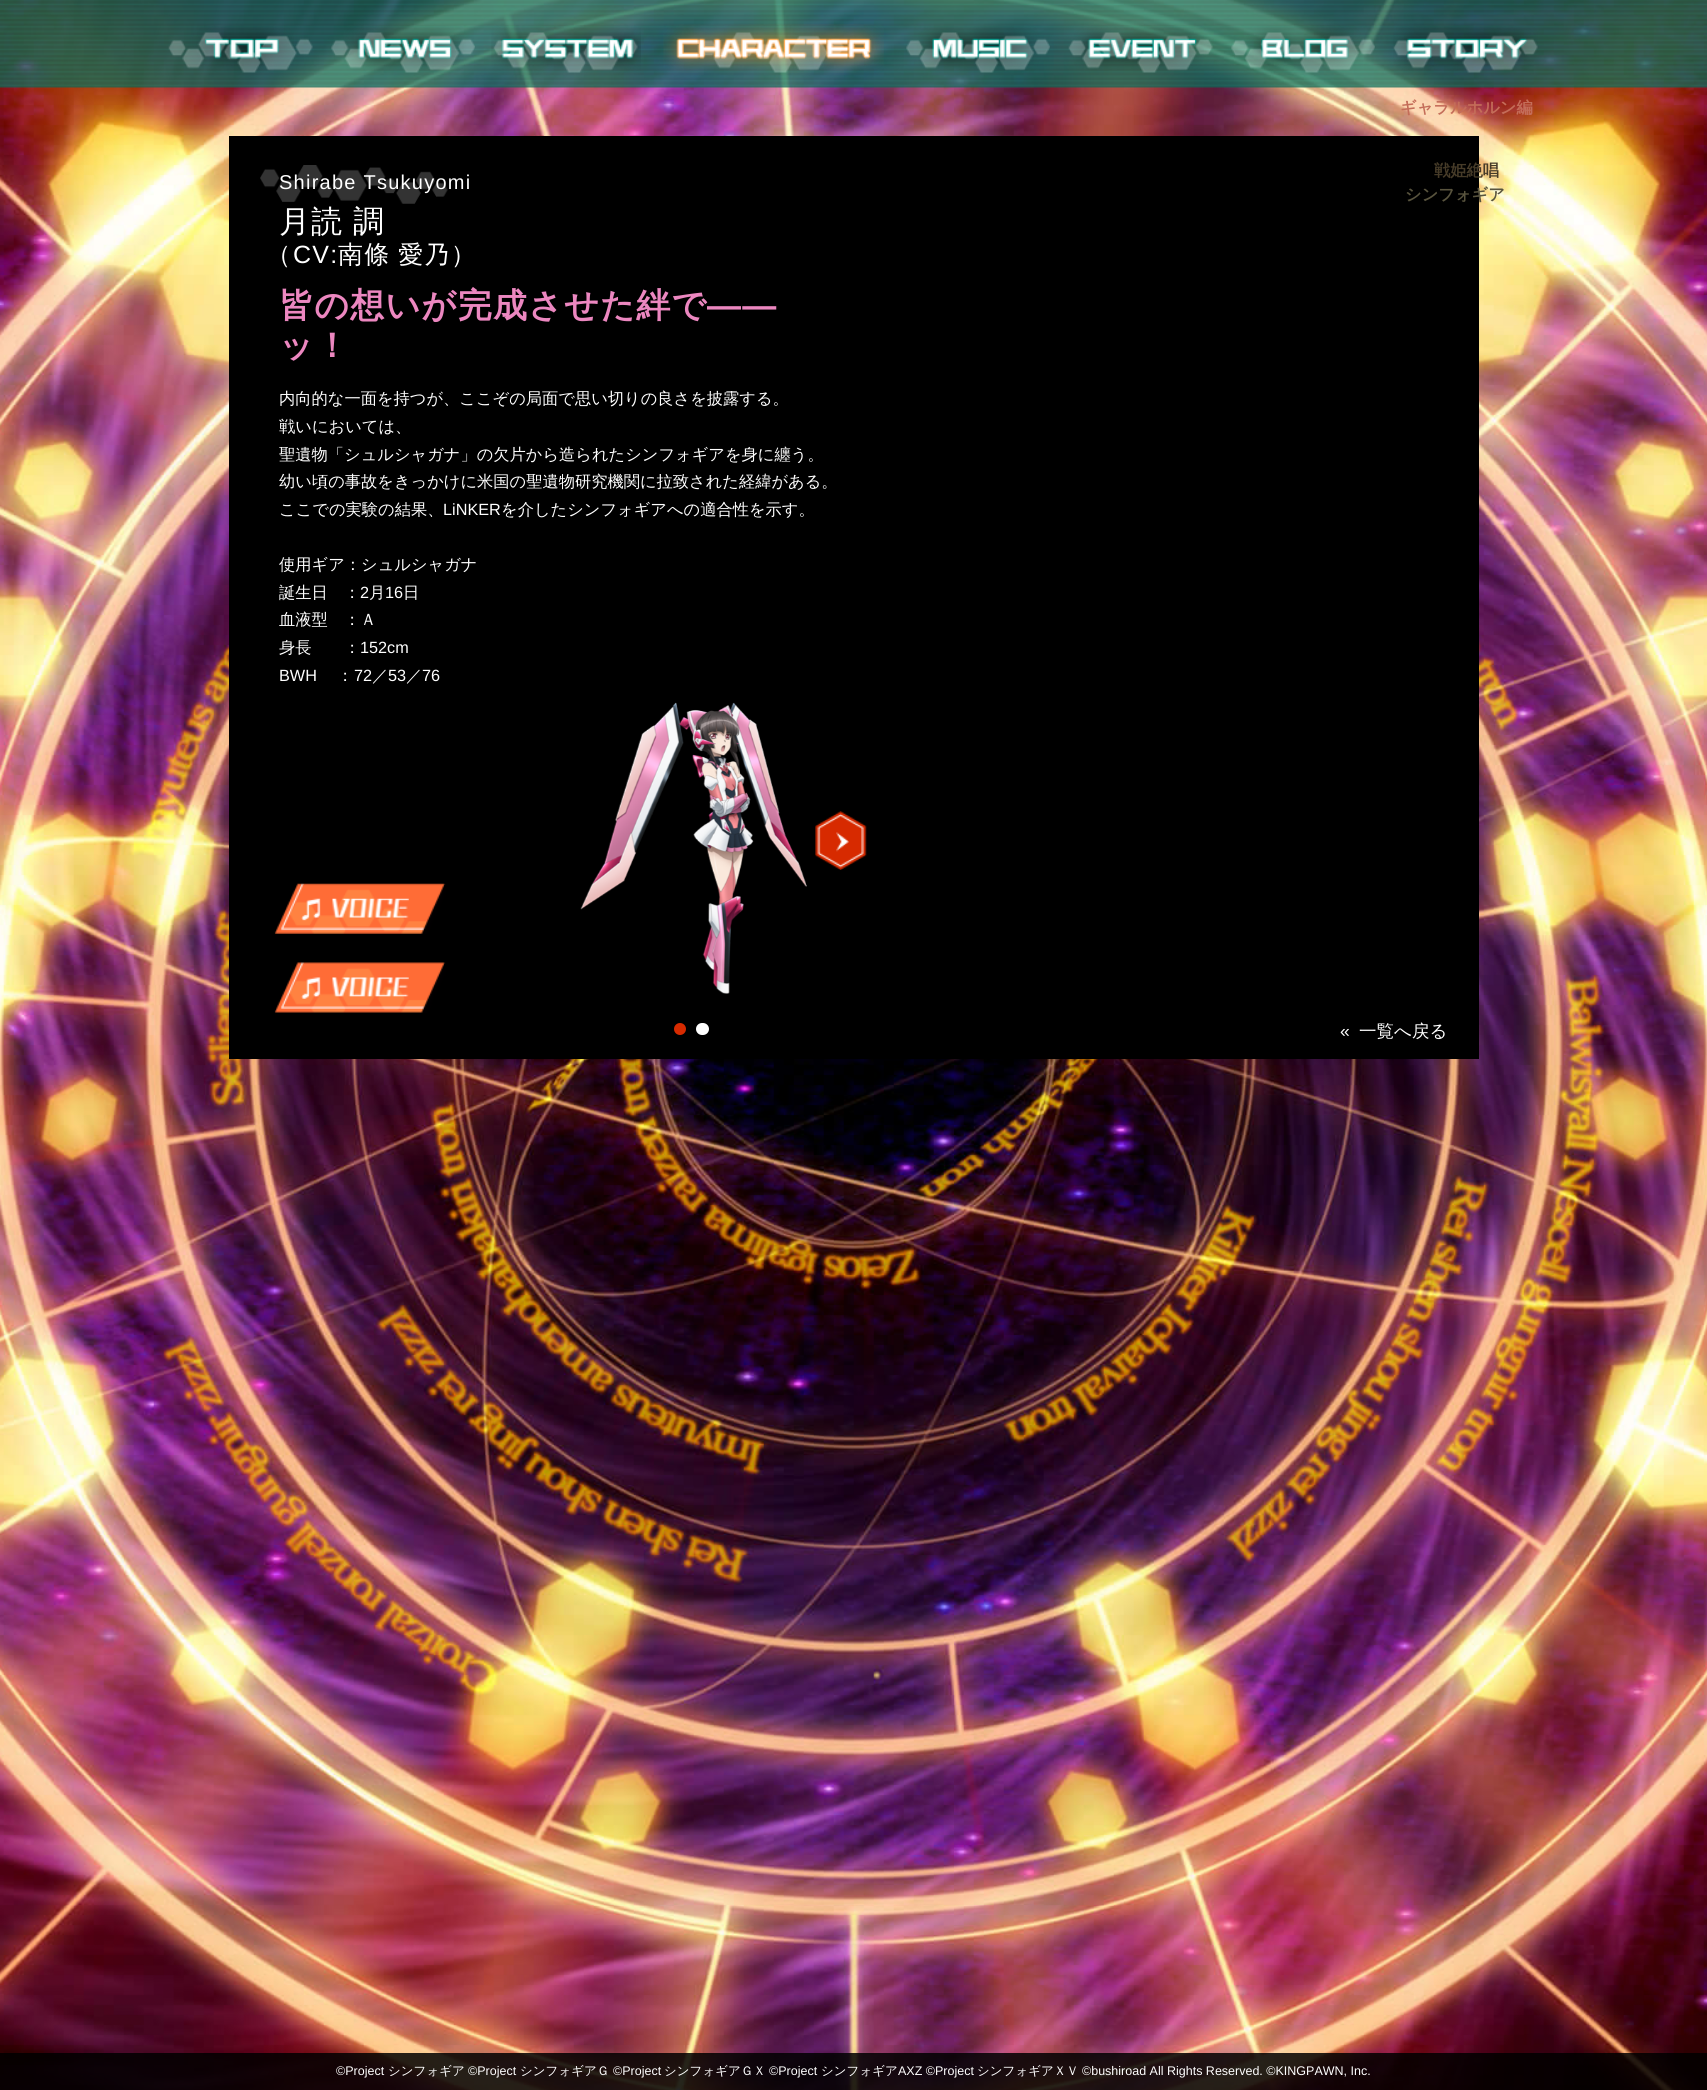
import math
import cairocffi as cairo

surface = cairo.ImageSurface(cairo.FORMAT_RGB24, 1707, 2090)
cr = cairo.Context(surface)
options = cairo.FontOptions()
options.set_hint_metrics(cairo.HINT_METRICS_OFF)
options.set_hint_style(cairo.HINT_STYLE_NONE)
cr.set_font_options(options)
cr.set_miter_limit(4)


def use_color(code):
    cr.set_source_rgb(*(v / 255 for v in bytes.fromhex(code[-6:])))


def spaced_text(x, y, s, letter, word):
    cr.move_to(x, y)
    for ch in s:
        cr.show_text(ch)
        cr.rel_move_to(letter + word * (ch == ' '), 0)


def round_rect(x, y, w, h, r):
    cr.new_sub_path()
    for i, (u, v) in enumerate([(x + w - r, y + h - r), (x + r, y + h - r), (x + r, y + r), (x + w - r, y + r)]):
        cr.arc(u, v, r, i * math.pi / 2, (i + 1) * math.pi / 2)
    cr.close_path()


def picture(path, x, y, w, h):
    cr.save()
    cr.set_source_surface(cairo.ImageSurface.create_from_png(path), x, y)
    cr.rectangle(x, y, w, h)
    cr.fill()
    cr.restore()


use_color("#ffffff")
cr.paint()
picture("img1.png", 0, 0, 1707, 2090)
picture("img2.png", 0, 0, 1707, 88)
picture("img3.png", 168, 26, 145, 47)
picture("img4.png", 331, 25, 144, 48)
picture("img5.png", 491, 25, 150, 48)
picture("img6.png", 663, 24, 221, 49)
picture("img7.png", 906, 26, 144, 47)
picture("img8.png", 1068, 25, 145, 48)
picture("img9.png", 1231, 25, 144, 48)
picture("img10.png", 1393, 26, 145, 47)
cr.select_font_face("WenQuanYi Zen Hei", cairo.FONT_SLANT_NORMAL, cairo.FONT_WEIGHT_BOLD)
cr.set_font_size(16.25)
use_color("#c46d59")
cr.move_to(1400, 113)
cr.show_text("ギャラルホルン編")
use_color("#000000")
cr.rectangle(229, 136, 1250, 923)
cr.fill()
use_color("#463b28")
cr.move_to(1434, 176)
cr.show_text("戦姫絶唱")
use_color("#59543e")
cr.move_to(1405, 200)
cr.show_text("シンフォギア")
picture("img11.png", 260, 165, 188, 39)
cr.select_font_face("Liberation Sans")
cr.set_font_size(20)
use_color("#ffffff")
spaced_text(279, 189, "Shirabe Tsukuyomi", 1.25, 0)
cr.select_font_face("WenQuanYi Zen Hei Medium")
cr.set_font_size(31)
spaced_text(279, 232, "月読 調", 1.25, -1)
cr.set_font_size(25)
spaced_text(266, 263, "（", 1.25, 0)
cr.select_font_face("Liberation Sans")
spaced_text(293, 263, "CV:", 1.25, 0)
cr.select_font_face("WenQuanYi Zen Hei Medium")
spaced_text(338, 263, "南條 愛乃）", 1.25, -1)
cr.select_font_face("WenQuanYi Zen Hei", cairo.FONT_SLANT_NORMAL, cairo.FONT_WEIGHT_BOLD)
cr.set_font_size(34)
use_color("#ec87c0")
spaced_text(279, 317, "皆の想いが完成させた絆で", 1.25, 0)
cr.select_font_face("Liberation Sans", cairo.FONT_SLANT_NORMAL, cairo.FONT_WEIGHT_BOLD)
spaced_text(707, 317, "――", 1.25, 0)
cr.select_font_face("WenQuanYi Zen Hei", cairo.FONT_SLANT_NORMAL, cairo.FONT_WEIGHT_BOLD)
spaced_text(279, 357, "ッ！", 1.25, 0)
cr.select_font_face("WenQuanYi Zen Hei Medium")
cr.set_font_size(16.25)
use_color("#ffffff")
cr.move_to(279, 404)
cr.show_text("内向的な一面を持つが、ここぞの局面で思い切りの良さを披露する。")
cr.move_to(279, 432)
cr.show_text("戦いにおいては、")
cr.move_to(279, 460)
cr.show_text("聖遺物「シュルシャガナ」の欠片から造られたシンフォギアを身に纏う。")
cr.move_to(279, 487)
cr.show_text("幼い頃の事故をきっかけに米国の聖遺物研究機関に拉致された経緯がある。")
cr.move_to(279, 515)
cr.show_text("ここでの実験の結果、")
cr.select_font_face("Liberation Sans")
cr.move_to(443, 515)
cr.show_text("LiNKER")
cr.select_font_face("WenQuanYi Zen Hei Medium")
cr.move_to(501, 515)
cr.show_text("を介したシンフォギアへの適合性を示す。")
cr.move_to(279, 570)
cr.show_text("使用ギア：シュルシャガナ")
cr.move_to(279, 598)
cr.show_text("誕生日　：")
cr.select_font_face("Liberation Sans")
cr.move_to(360, 598)
cr.show_text("2")
cr.select_font_face("WenQuanYi Zen Hei Medium")
cr.move_to(369, 598)
cr.show_text("月")
cr.select_font_face("Liberation Sans")
cr.move_to(385, 598)
cr.show_text("16")
cr.select_font_face("WenQuanYi Zen Hei Medium")
cr.move_to(403, 598)
cr.show_text("日")
cr.move_to(279, 625)
cr.show_text("血液型　：Ａ")
cr.move_to(279, 653)
cr.show_text("身長　　：")
cr.select_font_face("Liberation Sans")
cr.move_to(360, 653)
cr.show_text("152cm")
cr.move_to(279, 681)
cr.show_text("BWH")
cr.select_font_face("WenQuanYi Zen Hei Medium")
cr.move_to(337, 681)
cr.show_text("：")
cr.select_font_face("Liberation Sans")
cr.move_to(354, 681)
cr.show_text("72")
cr.select_font_face("WenQuanYi Zen Hei Medium")
cr.move_to(372, 681)
cr.show_text("／")
cr.select_font_face("Liberation Sans")
cr.move_to(388, 681)
cr.show_text("53")
cr.select_font_face("WenQuanYi Zen Hei Medium")
cr.move_to(406, 681)
cr.show_text("／")
cr.select_font_face("Liberation Sans")
cr.move_to(422, 681)
cr.show_text("76")
picture("img12.png", 580, 702, 227, 292)
picture("img13.png", 815, 811, 52, 59)
use_color("#d72a00")
cr.arc(680, 1029, 6, 0, 2 * math.pi)
cr.fill()
use_color("#ffffff")
round_rect(696, 1023, 13, 12, 6)
cr.fill()
picture("img14.png", 274, 883, 172, 51)
picture("img15.png", 274, 962, 172, 51)
cr.set_font_size(17.5)
cr.move_to(1340, 1037)
cr.show_text("«")
cr.select_font_face("WenQuanYi Zen Hei Medium")
cr.move_to(1359, 1037)
cr.show_text("一覧へ戻る")
cr.set_source_rgba(0, 0, 0, 0.85)
cr.rectangle(0, 2053, 1707, 37)
cr.fill()
cr.select_font_face("Liberation Sans")
cr.set_font_size(12.5)
use_color("#ffffff")
cr.move_to(336, 2075)
cr.show_text("©Project")
cr.select_font_face("WenQuanYi Zen Hei Medium")
cr.move_to(388, 2075)
cr.show_text("シンフォギア")
cr.select_font_face("Liberation Sans")
cr.move_to(468, 2075)
cr.show_text("©Project")
cr.select_font_face("WenQuanYi Zen Hei Medium")
cr.move_to(520, 2075)
cr.show_text("シンフォギアＧ")
cr.select_font_face("Liberation Sans")
cr.move_to(613, 2075)
cr.show_text("©Project")
cr.select_font_face("WenQuanYi Zen Hei Medium")
cr.move_to(664, 2075)
cr.show_text("シンフォギアＧＸ")
cr.select_font_face("Liberation Sans")
cr.move_to(769, 2075)
cr.show_text("©Project")
cr.select_font_face("WenQuanYi Zen Hei Medium")
cr.move_to(821, 2075)
cr.show_text("シンフォギア")
cr.select_font_face("Liberation Sans")
cr.move_to(898, 2075)
cr.show_text("AXZ ©Project")
cr.select_font_face("WenQuanYi Zen Hei Medium")
cr.move_to(977, 2075)
cr.show_text("シンフォギアＸＶ")
cr.select_font_face("Liberation Sans")
cr.move_to(1082, 2075)
cr.show_text("©bushiroad All Rights Reserved. ©KINGPAWN, Inc.")
surface.write_to_png("result.png")
